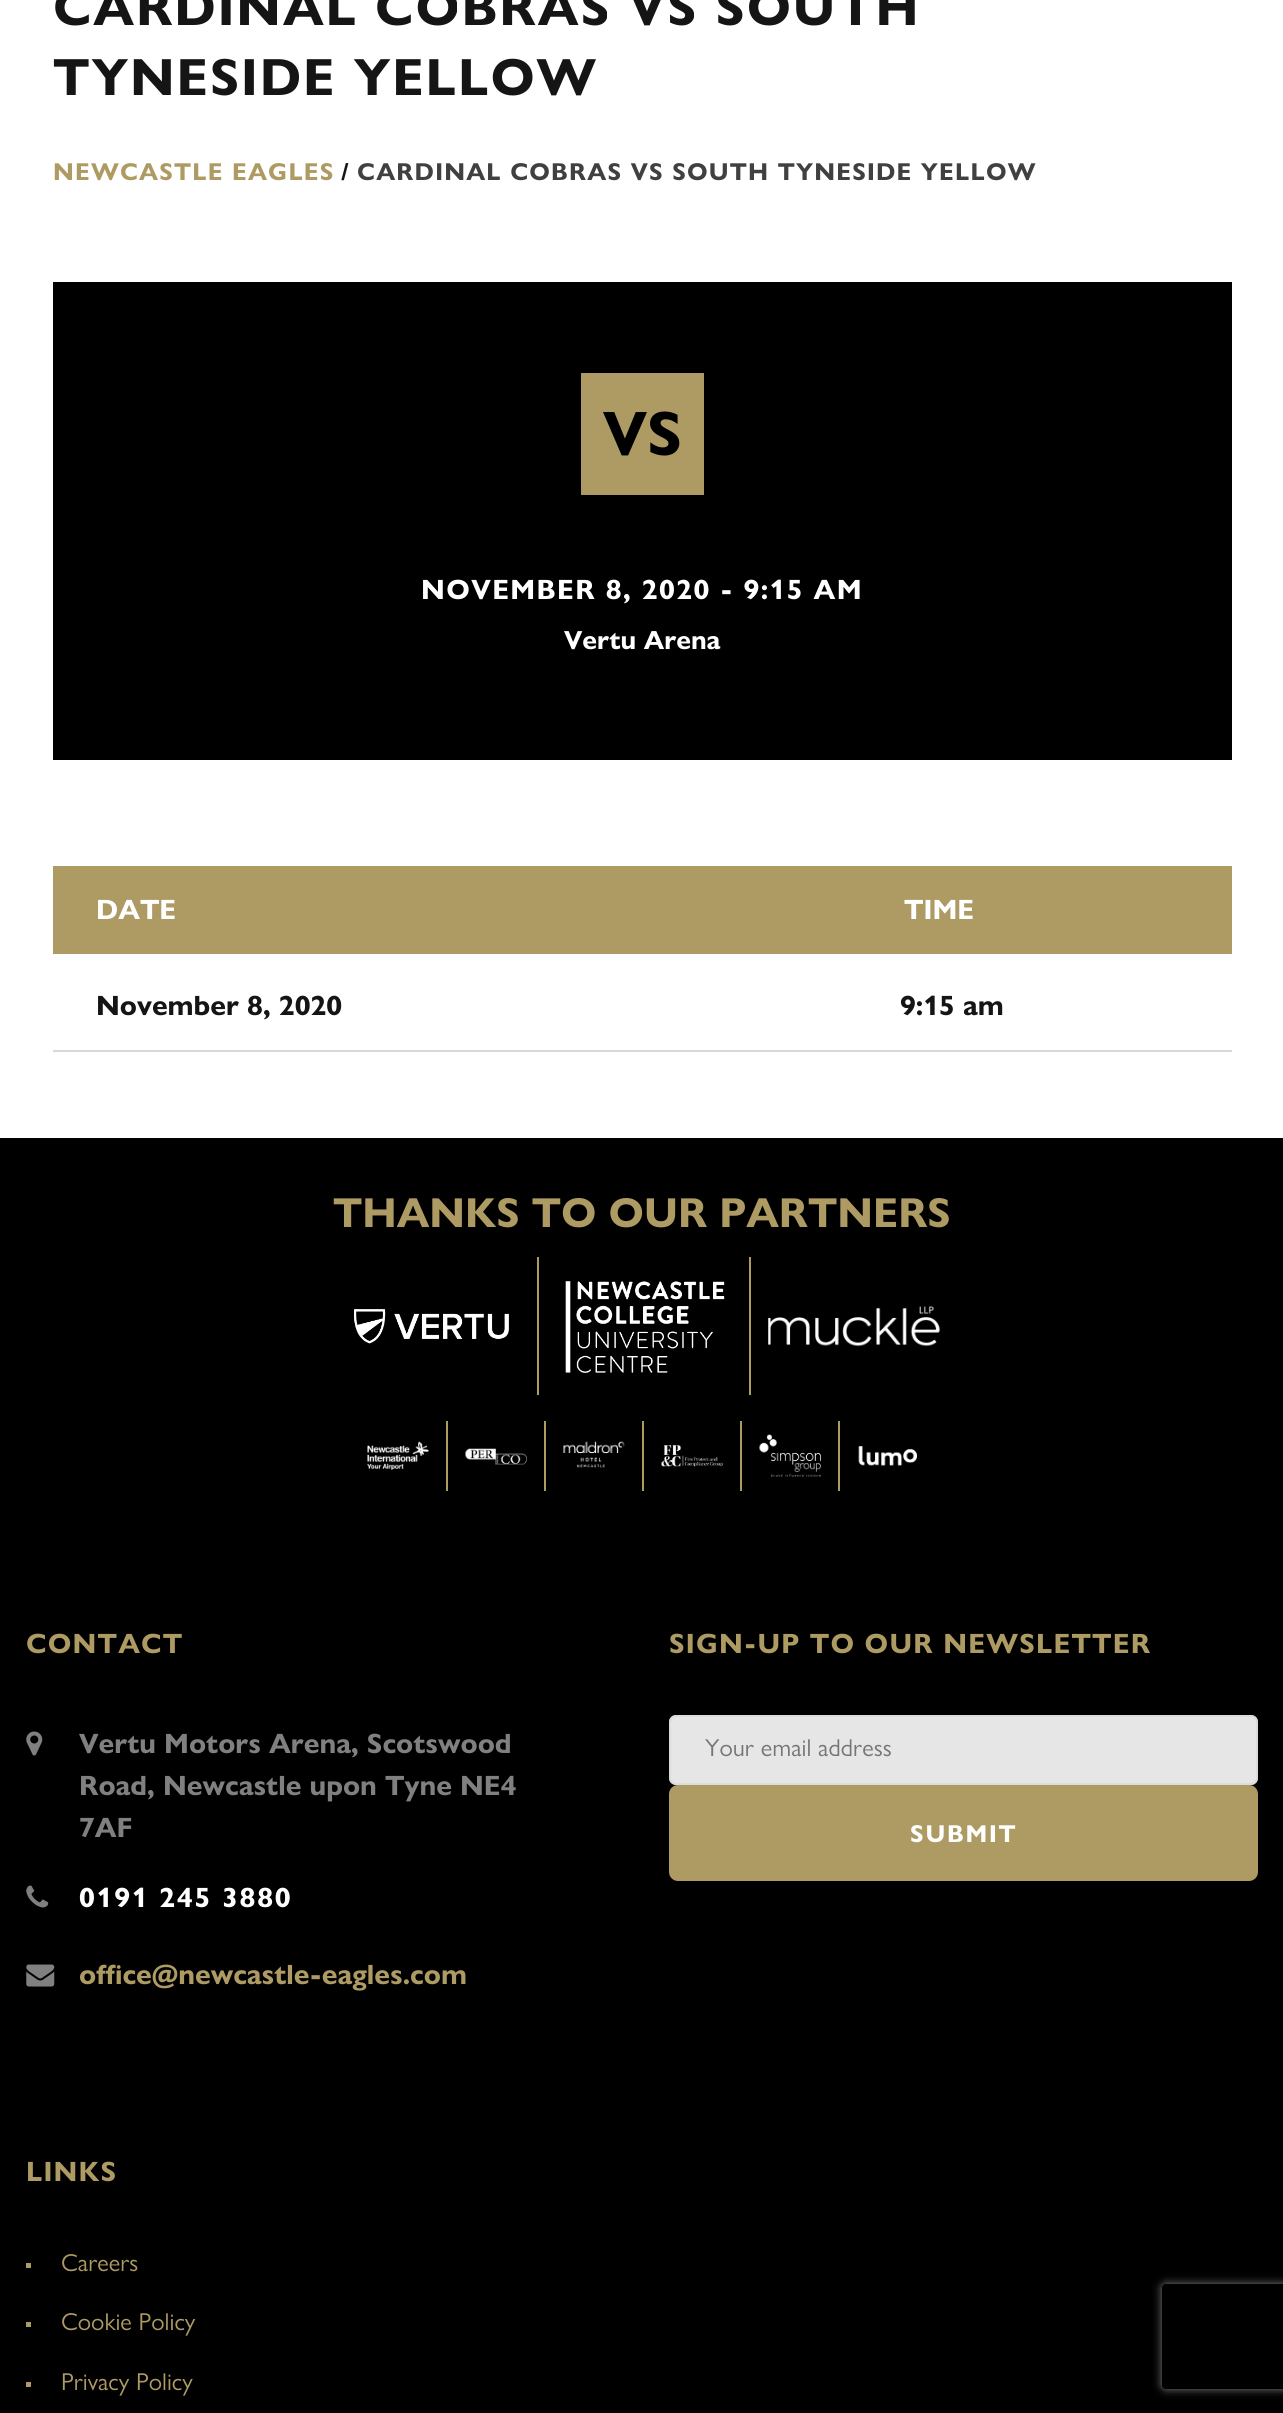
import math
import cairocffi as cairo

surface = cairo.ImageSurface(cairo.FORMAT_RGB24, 1283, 2413)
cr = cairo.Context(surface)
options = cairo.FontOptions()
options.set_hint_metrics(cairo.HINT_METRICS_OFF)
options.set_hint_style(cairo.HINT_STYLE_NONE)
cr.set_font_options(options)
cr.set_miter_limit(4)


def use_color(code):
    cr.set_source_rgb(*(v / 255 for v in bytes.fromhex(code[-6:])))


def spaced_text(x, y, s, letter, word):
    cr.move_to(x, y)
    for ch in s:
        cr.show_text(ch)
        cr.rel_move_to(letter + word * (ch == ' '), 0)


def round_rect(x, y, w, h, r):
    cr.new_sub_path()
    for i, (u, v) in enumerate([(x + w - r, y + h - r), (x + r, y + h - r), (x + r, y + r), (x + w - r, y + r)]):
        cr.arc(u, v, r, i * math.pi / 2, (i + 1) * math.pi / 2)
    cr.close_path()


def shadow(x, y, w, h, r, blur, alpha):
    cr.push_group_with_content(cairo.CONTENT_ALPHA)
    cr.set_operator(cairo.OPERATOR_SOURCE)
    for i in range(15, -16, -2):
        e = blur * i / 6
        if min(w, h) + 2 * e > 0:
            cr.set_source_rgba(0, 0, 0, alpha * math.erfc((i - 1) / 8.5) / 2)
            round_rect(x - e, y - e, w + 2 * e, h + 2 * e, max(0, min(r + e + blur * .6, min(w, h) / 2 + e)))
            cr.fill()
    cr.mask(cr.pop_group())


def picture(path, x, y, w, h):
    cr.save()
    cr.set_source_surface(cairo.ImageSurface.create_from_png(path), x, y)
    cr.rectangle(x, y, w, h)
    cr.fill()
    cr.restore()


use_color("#ffffff")
cr.paint()
cr.select_font_face("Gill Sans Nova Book", cairo.FONT_SLANT_NORMAL, cairo.FONT_WEIGHT_BOLD)
cr.set_font_size(52.5)
use_color("#151515")
spaced_text(53, 25, "CARDINAL COBRAS VS SOUTH", 1.9, 0)
spaced_text(53, 95, "TYNESIDE YELLOW", 1.9, 0)
cr.set_font_size(24.5)
use_color("#ae9a63")
spaced_text(53, 180, "NEWCASTLE EAGLES", 1.2, 0)
use_color("#151515")
spaced_text(341, 180, "/", 1.2, 0)
use_color("#404040")
spaced_text(357, 180, "CARDINAL COBRAS VS SOUTH TYNESIDE YELLOW", 1.2, 0)
use_color("#000000")
cr.rectangle(53, 282, 1179, 478)
cr.fill()
use_color("#ae9a63")
cr.rectangle(581, 373, 123, 122)
cr.fill()
cr.set_font_size(63)
use_color("#000000")
cr.move_to(603, 455)
cr.show_text("VS")
cr.set_font_size(28)
use_color("#ffffff")
spaced_text(421, 599, "NOVEMBER 8, 2020 - 9:15 AM", 1.4, 0)
cr.set_font_size(26.25)
cr.move_to(564, 649)
cr.show_text("Vertu Arena")
use_color("#ae9a63")
cr.rectangle(53, 866, 1179, 88)
cr.fill()
cr.set_font_size(28)
use_color("#ffffff")
cr.move_to(96, 919)
cr.show_text("DATE")
cr.move_to(904, 919)
cr.show_text("TIME")
use_color("#d8d8d8")
cr.rectangle(53, 1050, 1179, 2)
cr.fill()
use_color("#151515")
cr.move_to(96, 1015)
cr.show_text("November 8, 2020")
cr.move_to(900, 1015)
cr.show_text("9:15 am")
use_color("#000000")
cr.rectangle(0, 1138, 1283, 1275)
cr.fill()
cr.set_font_size(42)
use_color("#ae9a63")
cr.move_to(333, 1227)
cr.show_text("THANKS TO OUR PARTNERS")
picture("img1.png", 354, 1309, 155, 35)
cr.rectangle(537, 1257, 2, 138)
cr.fill()
picture("img2.png", 565, 1281, 160, 92)
cr.rectangle(749, 1257, 2, 138)
cr.fill()
picture("img3.png", 768, 1306, 172, 41)
picture("img4.png", 367, 1441, 62, 29)
cr.rectangle(446, 1421, 2, 70)
cr.fill()
picture("img5.png", 465, 1448, 62, 17)
cr.rectangle(544, 1421, 2, 70)
cr.fill()
picture("img6.png", 563, 1441, 62, 27)
cr.rectangle(642, 1421, 2, 70)
cr.fill()
picture("img7.png", 661, 1445, 62, 22)
cr.rectangle(740, 1421, 2, 70)
cr.fill()
picture("img8.png", 759, 1434, 62, 43)
cr.rectangle(838, 1421, 2, 70)
cr.fill()
picture("img9.png", 858, 1446, 59, 20)
cr.set_font_size(28)
spaced_text(26, 1653, "CONTACT", 1.2, 0)
picture("img10.png", 26, 1731, 17, 25)
use_color("#808080")
cr.move_to(79, 1753)
cr.show_text("Vertu Motors Arena, Scotswood")
cr.move_to(79, 1795)
cr.show_text("Road, Newcastle upon Tyne NE4")
cr.move_to(79, 1837)
cr.show_text("7AF")
picture("img11.png", 26, 1885, 23, 23)
use_color("#ffffff")
spaced_text(79, 1907, "0191 245 3880", 1.75, 0)
picture("img12.png", 26, 1964, 29, 23)
use_color("#ae9a63")
cr.move_to(79, 1984)
cr.show_text("office@newcastle-eagles.com")
spaced_text(669, 1653, "SIGN-UP TO OUR NEWSLETTER", 1.2, 0)
use_color("#e6e6e6")
round_rect(669, 1715, 589, 70, 7)
cr.fill()
round_rect(670, 1716, 587, 68, 6)
cr.set_source_rgba(0.843, 0.843, 0.839, 0.7)
cr.stroke()
cr.select_font_face("Gill Sans Nova Book")
cr.set_font_size(24.5)
use_color("#757575")
cr.move_to(705, 1756)
cr.show_text("Your email address")
use_color("#ae9a63")
round_rect(671, 1787, 585, 92, 7)
cr.fill_preserve()
cr.set_line_width(4)
cr.stroke()
cr.select_font_face("Gill Sans Nova Book", cairo.FONT_SLANT_NORMAL, cairo.FONT_WEIGHT_BOLD)
use_color("#ffffff")
spaced_text(910, 1842, "SUBMIT", 1.75, 0)
cr.set_font_size(28)
use_color("#ae9a63")
spaced_text(26, 2181, "LINKS", 1.2, 0)
cr.rectangle(26, 2263, 5, 5)
cr.fill()
cr.select_font_face("Gill Sans Nova Book")
cr.set_font_size(24.5)
cr.move_to(61, 2271)
cr.show_text("Careers")
cr.rectangle(26, 2322, 5, 5)
cr.fill()
cr.move_to(61, 2330)
cr.show_text("Cookie Policy")
cr.rectangle(26, 2382, 5, 5)
cr.fill()
cr.move_to(61, 2390)
cr.show_text("Privacy Policy")
cr.save()
cr.set_fill_rule(cairo.FILL_RULE_EVEN_ODD)
cr.new_path()
cr.move_to(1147, 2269)
cr.line_to(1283, 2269)
cr.line_to(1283, 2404)
cr.line_to(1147, 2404)
cr.close_path()
cr.move_to(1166, 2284)
cr.line_to(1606, 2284)
cr.curve_to(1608, 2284, 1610, 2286, 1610, 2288)
cr.line_to(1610, 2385)
cr.curve_to(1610, 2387, 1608, 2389, 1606, 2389)
cr.line_to(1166, 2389)
cr.curve_to(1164, 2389, 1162, 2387, 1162, 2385)
cr.line_to(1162, 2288)
cr.curve_to(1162, 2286, 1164, 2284, 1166, 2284)
cr.close_path()
cr.clip()
use_color("#808080")
shadow(1162, 2284, 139, 105, 4, 4.5, 1)
cr.restore()
surface.write_to_png("result.png")
